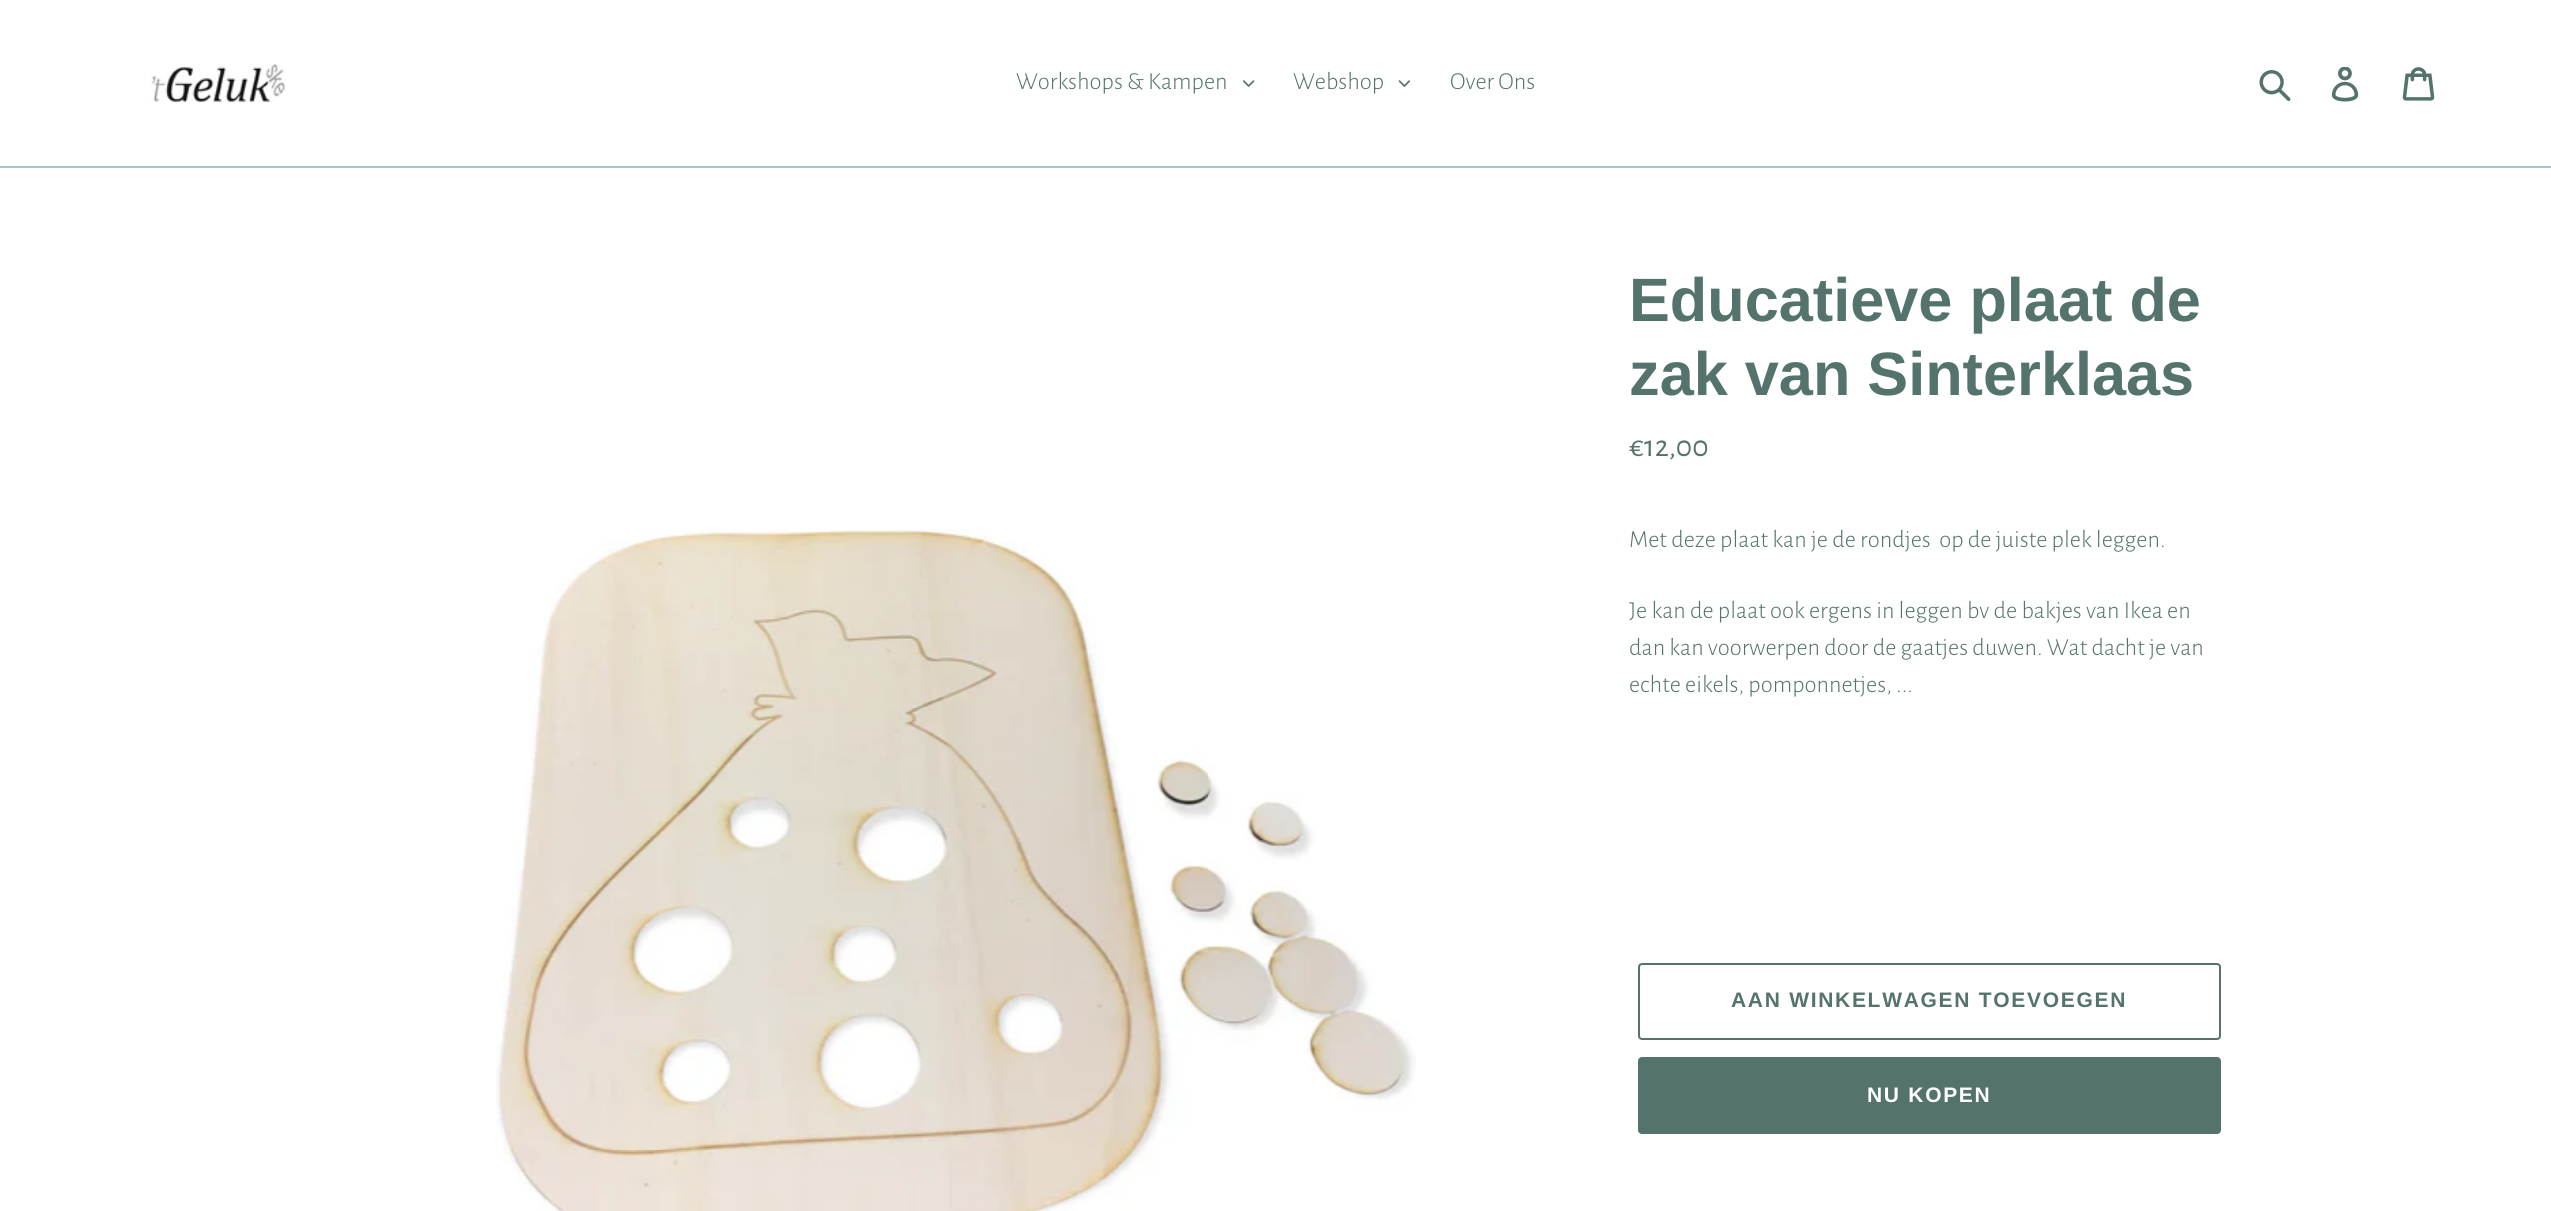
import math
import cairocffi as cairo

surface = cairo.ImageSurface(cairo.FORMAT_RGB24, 2551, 1211)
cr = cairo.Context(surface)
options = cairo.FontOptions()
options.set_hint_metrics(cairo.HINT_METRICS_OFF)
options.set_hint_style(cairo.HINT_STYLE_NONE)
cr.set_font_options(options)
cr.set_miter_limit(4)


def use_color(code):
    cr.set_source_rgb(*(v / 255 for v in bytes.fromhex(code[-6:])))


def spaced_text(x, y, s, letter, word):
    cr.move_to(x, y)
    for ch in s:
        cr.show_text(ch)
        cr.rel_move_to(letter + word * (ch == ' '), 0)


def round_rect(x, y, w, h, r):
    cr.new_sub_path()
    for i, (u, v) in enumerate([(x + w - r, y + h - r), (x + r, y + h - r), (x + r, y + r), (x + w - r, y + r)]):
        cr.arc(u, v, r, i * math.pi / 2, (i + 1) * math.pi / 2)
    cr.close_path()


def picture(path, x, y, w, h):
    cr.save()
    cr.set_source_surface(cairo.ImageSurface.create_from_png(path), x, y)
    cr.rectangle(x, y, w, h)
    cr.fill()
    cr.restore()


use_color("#ffffff")
cr.paint()
use_color("#a7c7c2")
cr.rectangle(0, 166, 2551, 2)
cr.fill()
picture("img1.png", 151, 64, 135, 39)
cr.select_font_face("Alegreya Sans Light")
cr.set_font_size(24.5)
use_color("#55736d")
cr.move_to(1016, 89)
cr.show_text("Workshops & Kampen")
picture("img2.png", 1243, 80, 12, 7)
cr.move_to(1293, 89)
cr.show_text("Webshop")
picture("img3.png", 1398, 80, 13, 7)
cr.move_to(1450, 89)
cr.show_text("Over Ons")
picture("img4.png", 2259, 70, 32, 31)
picture("img5.png", 2331, 67, 28, 35)
picture("img6.png", 2402, 67, 33, 34)
picture("img7.png", 496, 529, 920, 682)
cr.select_font_face("Liberation Sans", cairo.FONT_SLANT_NORMAL, cairo.FONT_WEIGHT_BOLD)
cr.set_font_size(61.25)
cr.move_to(1629, 321)
cr.show_text("Educatieve plaat de")
cr.move_to(1629, 395)
cr.show_text("zak van Sinterklaas")
cr.select_font_face("Alegreya Sans")
cr.set_font_size(31)
cr.move_to(1629, 456)
cr.show_text("€12,00")
cr.select_font_face("Alegreya Sans Light")
cr.set_font_size(24.5)
cr.move_to(1629, 547)
cr.show_text("Met deze plaat kan je de rondjes  op de juiste plek leggen.")
cr.move_to(1629, 618)
cr.show_text("Je kan de plaat ook ergens in leggen bv de bakjes van Ikea en")
cr.move_to(1629, 655)
cr.show_text("dan kan voorwerpen door de gaatjes duwen. Wat dacht je van")
cr.move_to(1629, 692)
cr.show_text("echte eikels, pomponnetjes, ...")
round_rect(1639, 964, 581, 75, 3)
cr.stroke()
cr.select_font_face("Liberation Sans", cairo.FONT_SLANT_NORMAL, cairo.FONT_WEIGHT_BOLD)
cr.set_font_size(21)
spaced_text(1731, 1007, "AAN WINKELWAGEN TOEVOEGEN", 1.7, 0)
round_rect(1638, 1057, 583, 77, 4)
cr.fill()
use_color("#ffffff")
spaced_text(1867, 1102, "NU KOPEN", 1.7, 0)
surface.write_to_png("result.png")
